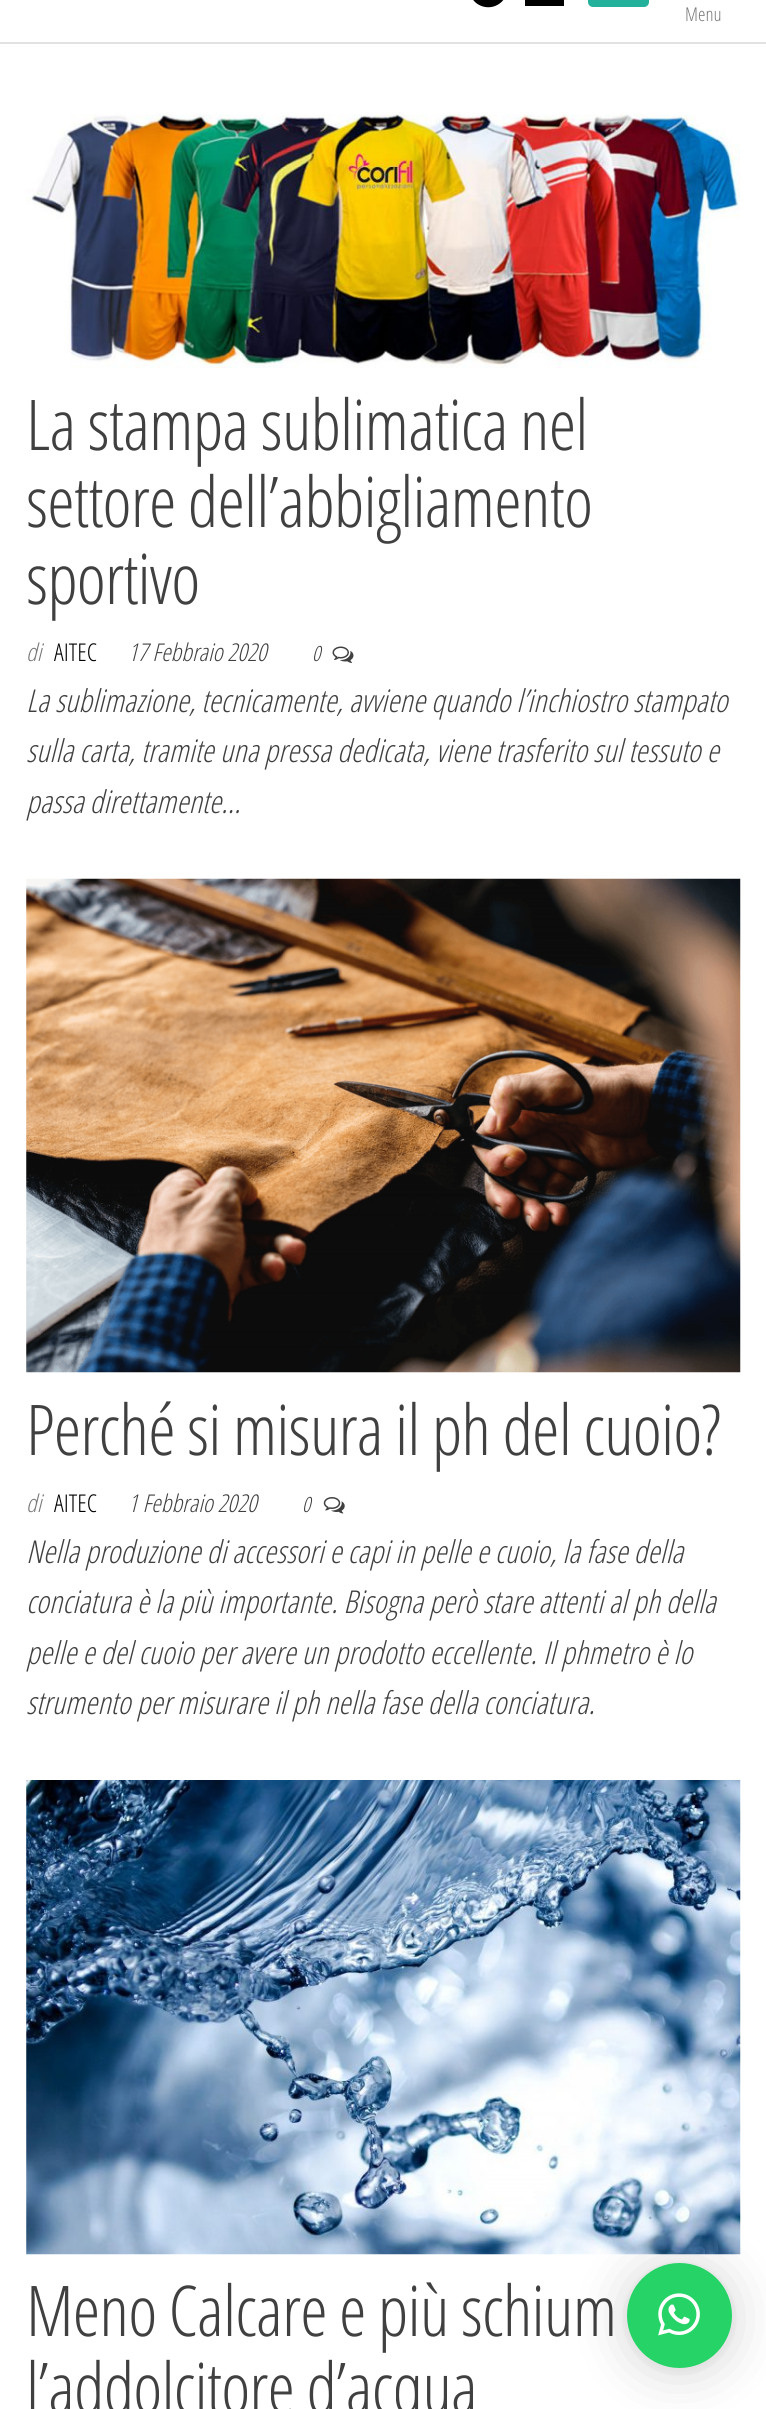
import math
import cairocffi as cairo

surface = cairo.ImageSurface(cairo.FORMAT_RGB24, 766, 2409)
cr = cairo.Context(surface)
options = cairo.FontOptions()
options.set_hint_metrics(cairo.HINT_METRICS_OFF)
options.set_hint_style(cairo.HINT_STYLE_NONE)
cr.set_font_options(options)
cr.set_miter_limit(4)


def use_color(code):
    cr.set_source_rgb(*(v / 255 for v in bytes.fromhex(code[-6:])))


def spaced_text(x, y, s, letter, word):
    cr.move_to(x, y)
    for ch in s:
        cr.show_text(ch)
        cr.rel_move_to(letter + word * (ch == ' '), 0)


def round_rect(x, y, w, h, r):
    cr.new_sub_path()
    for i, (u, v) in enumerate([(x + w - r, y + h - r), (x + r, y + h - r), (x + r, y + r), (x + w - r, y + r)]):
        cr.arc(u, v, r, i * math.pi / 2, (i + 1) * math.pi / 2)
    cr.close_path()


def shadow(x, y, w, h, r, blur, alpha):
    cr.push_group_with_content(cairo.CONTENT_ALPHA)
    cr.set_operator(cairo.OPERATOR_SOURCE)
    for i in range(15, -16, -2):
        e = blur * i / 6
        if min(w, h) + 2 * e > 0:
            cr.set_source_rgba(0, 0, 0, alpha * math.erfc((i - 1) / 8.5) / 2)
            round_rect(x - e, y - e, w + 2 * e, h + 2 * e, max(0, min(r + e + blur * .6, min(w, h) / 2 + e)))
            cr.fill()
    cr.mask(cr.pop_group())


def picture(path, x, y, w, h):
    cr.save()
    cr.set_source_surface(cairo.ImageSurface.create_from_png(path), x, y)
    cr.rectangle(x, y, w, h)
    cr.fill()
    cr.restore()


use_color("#ffffff")
cr.paint()
use_color("#e2e2e2")
cr.rectangle(0, 42, 766, 2)
cr.fill()
picture("img1.png", 473, 0, 31, 8)
use_color("#000000")
cr.rectangle(525, 0, 39, 6)
cr.fill()
use_color("#24b19c")
round_rect(588, -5, 61, 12, 5)
cr.fill()
cr.select_font_face("Open Sans Condensed Light")
cr.set_font_size(19)
use_color("#777777")
cr.move_to(685, 21)
cr.show_text("Menu")
picture("img2.png", 26, 112, 714, 256)
cr.set_font_size(70)
use_color("#404040")
spaced_text(26, 450, "La stampa sublimatica nel", -0.9, 0)
spaced_text(26, 527, "settore dell’abbigliamento", -0.9, 0)
spaced_text(26, 604, "sportivo", -0.9, 0)
cr.select_font_face("Open Sans Condensed Light", cairo.FONT_SLANT_ITALIC)
cr.set_font_size(24.5)
use_color("#777777")
cr.move_to(26, 661)
cr.show_text("di")
cr.select_font_face("Open Sans Condensed Light")
use_color("#000000")
cr.move_to(54, 661)
cr.show_text("AITEC")
cr.select_font_face("Open Sans Condensed Light", cairo.FONT_SLANT_ITALIC)
use_color("#404040")
cr.move_to(128, 661)
cr.show_text("17 Febbraio 2020")
cr.set_font_size(21)
cr.move_to(312, 661)
cr.show_text("0")
picture("img3.png", 332, 646, 22, 17)
cr.set_font_size(31.5)
cr.move_to(26, 712)
cr.show_text("La sublimazione, tecnicamente, avviene quando l’inchiostro stampato")
cr.move_to(26, 762)
cr.show_text("sulla carta, tramite una pressa dedicata, viene trasferito sul tessuto e")
cr.move_to(26, 813)
cr.show_text("passa direttamente…")
picture("img4.png", 26, 878, 715, 495)
cr.select_font_face("Open Sans Condensed Light")
cr.set_font_size(70)
spaced_text(26, 1455, "Perché si misura il ph del cuoio?", -0.9, 0)
cr.select_font_face("Open Sans Condensed Light", cairo.FONT_SLANT_ITALIC)
cr.set_font_size(24.5)
use_color("#777777")
cr.move_to(26, 1512)
cr.show_text("di")
cr.select_font_face("Open Sans Condensed Light")
use_color("#000000")
cr.move_to(54, 1512)
cr.show_text("AITEC")
cr.select_font_face("Open Sans Condensed Light", cairo.FONT_SLANT_ITALIC)
use_color("#404040")
cr.move_to(128, 1512)
cr.show_text("1 Febbraio 2020")
cr.set_font_size(21)
cr.move_to(302, 1512)
cr.show_text("0")
picture("img5.png", 323, 1497, 22, 17)
cr.set_font_size(31.5)
cr.move_to(26, 1563)
cr.show_text("Nella produzione di accessori e capi in pelle e cuoio, la fase della")
cr.move_to(26, 1613)
cr.show_text("conciatura è la più importante. Bisogna però stare attenti al ph della")
cr.move_to(26, 1664)
cr.show_text("pelle e del cuoio per avere un prodotto eccellente. Il phmetro è lo")
cr.move_to(26, 1714)
cr.show_text("strumento per misurare il ph nella fase della conciatura.")
picture("img6.png", 26, 1780, 715, 475)
cr.select_font_face("Open Sans Condensed Light")
cr.set_font_size(70)
spaced_text(26, 2336, "Meno Calcare e più schium", -0.9, 0)
spaced_text(26, 2413, "l’addolcitore d’acqua", -0.9, 0)
use_color("#000000")
shadow(627, 2266, 105, 105, 52.5, 28, 0.16)
shadow(627, 2265, 105, 105, 52.5, 5, 0.06)
use_color("#25d366")
cr.arc(679.5, 2315.5, 52.5, 0, 2 * math.pi)
cr.fill()
picture("img7.png", 658, 2293, 42, 43)
surface.write_to_png("result.png")
